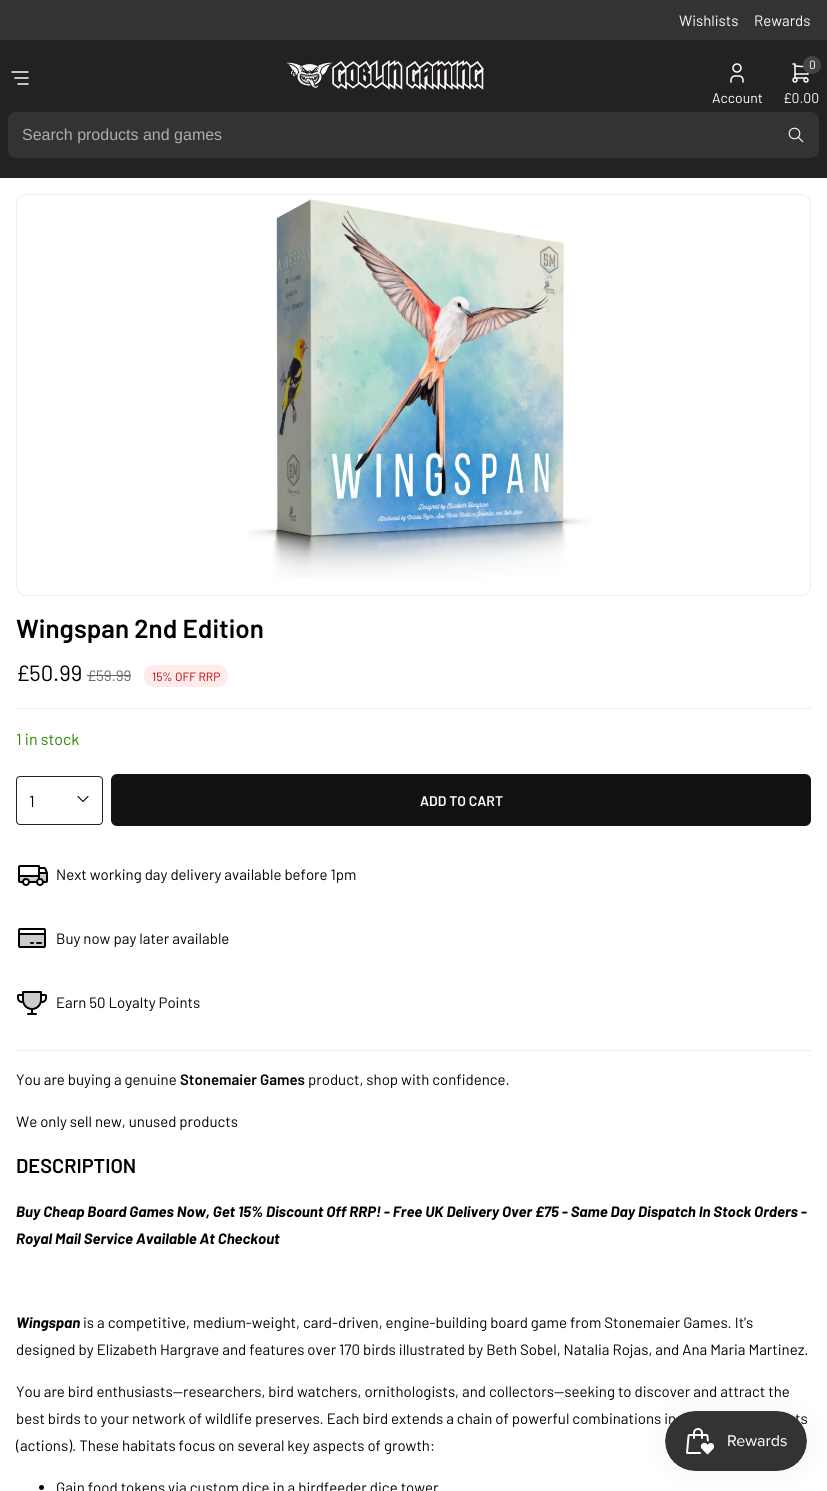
import math
import cairocffi as cairo

surface = cairo.ImageSurface(cairo.FORMAT_RGB24, 827, 1491)
cr = cairo.Context(surface)
options = cairo.FontOptions()
options.set_hint_metrics(cairo.HINT_METRICS_OFF)
options.set_hint_style(cairo.HINT_STYLE_NONE)
cr.set_font_options(options)
cr.set_miter_limit(4)


def use_color(code):
    cr.set_source_rgb(*(v / 255 for v in bytes.fromhex(code[-6:])))


def round_rect(x, y, w, h, r):
    cr.new_sub_path()
    for i, (u, v) in enumerate([(x + w - r, y + h - r), (x + r, y + h - r), (x + r, y + r), (x + w - r, y + r)]):
        cr.arc(u, v, r, i * math.pi / 2, (i + 1) * math.pi / 2)
    cr.close_path()


def shadow(x, y, w, h, r, blur, alpha):
    cr.push_group_with_content(cairo.CONTENT_ALPHA)
    cr.set_operator(cairo.OPERATOR_SOURCE)
    for i in range(15, -16, -2):
        e = blur * i / 6
        if min(w, h) + 2 * e > 0:
            cr.set_source_rgba(0, 0, 0, alpha * math.erfc((i - 1) / 8.5) / 2)
            round_rect(x - e, y - e, w + 2 * e, h + 2 * e, max(0, min(r + e + blur * .6, min(w, h) / 2 + e)))
            cr.fill()
    cr.mask(cr.pop_group())


def picture(path, x, y, w, h):
    cr.save()
    cr.set_source_surface(cairo.ImageSurface.create_from_png(path), x, y)
    cr.rectangle(x, y, w, h)
    cr.fill()
    cr.restore()


use_color("#ffffff")
cr.paint()
use_color("#222222")
cr.rectangle(0, 40, 827, 138)
cr.fill()
use_color("#333333")
cr.rectangle(0, 0, 827, 40)
cr.fill()
cr.select_font_face("Barlow")
cr.set_font_size(15)
use_color("#ffffff")
cr.move_to(679, 26)
cr.show_text("Wishlists")
cr.move_to(754, 26)
cr.show_text("Rewards")
picture("img1.png", 11, 71, 18, 14)
picture("img2.png", 285, 60, 199, 30)
picture("img3.png", 730, 63, 14, 20)
cr.set_font_size(14)
cr.move_to(712, 103)
cr.show_text("Account")
picture("img4.png", 792, 63, 17, 20)
use_color("#444444")
cr.arc(812, 65, 9, 0, 2 * math.pi)
cr.fill()
cr.set_font_size(12)
use_color("#ffffff")
cr.move_to(809, 69)
cr.show_text("0")
cr.set_font_size(14)
cr.move_to(783, 103)
cr.show_text("£0.00")
use_color("#333333")
round_rect(8, 112, 811, 46, 8)
cr.fill()
cr.select_font_face("Liberation Sans")
cr.set_font_size(16)
use_color("#adadad")
cr.move_to(22, 140)
cr.show_text("Search products and games")
picture("img5.png", 788, 127, 16, 16)
round_rect(16.5, 194.5, 794, 401, 9.5)
use_color("#eeeeee")
cr.set_line_width(1)
cr.stroke()
picture("img6.png", 247, 199, 344, 380)
cr.select_font_face("Barlow SemiBold")
cr.set_font_size(26)
use_color("#000000")
cr.move_to(16, 638)
cr.show_text("Wingspan 2nd Edition")
cr.select_font_face("Barlow")
cr.set_font_size(22)
cr.move_to(16, 681)
cr.show_text("£50.99")
cr.set_font_size(15)
use_color("#666666")
cr.move_to(87, 681)
cr.show_text("£59.99")
cr.rectangle(87, 675, 44, 1)
cr.fill()
use_color("#ffebeb")
round_rect(144, 665, 84, 22, 10)
cr.fill()
cr.set_font_size(12)
use_color("#b80000")
cr.move_to(152, 681)
cr.show_text("15% OFF RRP")
use_color("#eeeeee")
cr.rectangle(16, 708, 795, 1)
cr.fill()
cr.set_font_size(16)
use_color("#288500")
cr.move_to(16, 745)
cr.show_text("1 in stock")
round_rect(16.5, 776.5, 86, 48, 3.5)
use_color("#222222")
cr.stroke()
use_color("#000000")
cr.move_to(29, 807)
cr.show_text("1")
cr.new_path()
cr.move_to(78, 796.5)
cr.line_to(83, 801.5)
cr.line_to(88, 796.5)
cr.set_line_width(1.1)
cr.set_line_cap(cairo.LINE_CAP_ROUND)
cr.set_line_join(cairo.LINE_JOIN_ROUND)
cr.stroke()
use_color("#121212")
round_rect(111, 774, 700, 52, 6)
cr.fill()
cr.select_font_face("Barlow SemiBold")
cr.set_font_size(14)
use_color("#ffffff")
cr.move_to(420, 806)
cr.show_text("ADD TO CART")
picture("img7.png", 18, 865, 30, 21)
cr.select_font_face("Barlow")
cr.set_font_size(15)
use_color("#000000")
cr.move_to(56, 880)
cr.show_text("Next working day delivery available before 1pm")
picture("img8.png", 18, 928, 28, 20)
cr.move_to(56, 944)
cr.show_text("Buy now pay later available")
picture("img9.png", 17, 991, 30, 24)
cr.move_to(56, 1008)
cr.show_text("Earn 50 Loyalty Points")
use_color("#eeeeee")
cr.rectangle(16, 1050, 795, 1)
cr.fill()
use_color("#000000")
cr.move_to(16, 1085)
cr.show_text("You are buying a genuine")
cr.select_font_face("Barlow SemiBold")
cr.move_to(180, 1085)
cr.show_text("Stonemaier Games")
cr.select_font_face("Barlow")
cr.move_to(308, 1085)
cr.show_text("product, shop with confidence.")
cr.move_to(16, 1127)
cr.show_text("We only sell new, unused products")
cr.select_font_face("Barlow SemiBold")
cr.set_font_size(20)
cr.move_to(16, 1173)
cr.show_text("DESCRIPTION")
cr.select_font_face("Barlow", cairo.FONT_SLANT_ITALIC, cairo.FONT_WEIGHT_BOLD)
cr.set_font_size(15)
cr.move_to(16, 1217)
cr.show_text("Buy Cheap Board Games Now, Get 15% Discount Off RRP! - Free UK Delivery Over £75 - Same Day Dispatch In Stock Orders -")
cr.move_to(16, 1244)
cr.show_text("Royal Mail Service Available At Checkout")
cr.move_to(16, 1328)
cr.show_text("Wingspan")
cr.select_font_face("Barlow")
cr.move_to(83, 1328)
cr.show_text("is a competitive, medium-weight, card-driven, engine-building board game from Stonemaier Games. It's")
cr.move_to(16, 1355)
cr.show_text("designed by Elizabeth Hargrave and features over 170 birds illustrated by Beth Sobel, Natalia Rojas, and Ana Maria Martinez.")
cr.move_to(16, 1397)
cr.show_text("You are bird enthusiasts—researchers, bird watchers, ornithologists, and collectors—seeking to discover and attract the")
cr.move_to(16, 1424)
cr.show_text("best birds to your network of wildlife preserves. Each bird extends a chain of powerful combinations in")
cr.move_to(795, 1424)
cr.show_text("ts")
cr.move_to(16, 1451)
cr.show_text("(actions). These habitats focus on several key aspects of growth:")
cr.new_path()
cr.arc(41.5, 1487.5, 2.5, 0, 2 * math.pi)
cr.fill()
cr.move_to(56, 1493)
cr.show_text("Gain food tokens via custom dice in a birdfeeder dice tower")
use_color("#000000")
shadow(665, 1411, 142, 60, 30, 12.5, 0.05)
picture("img10.png", 665, 1411, 142, 60)
surface.write_to_png("result.png")
